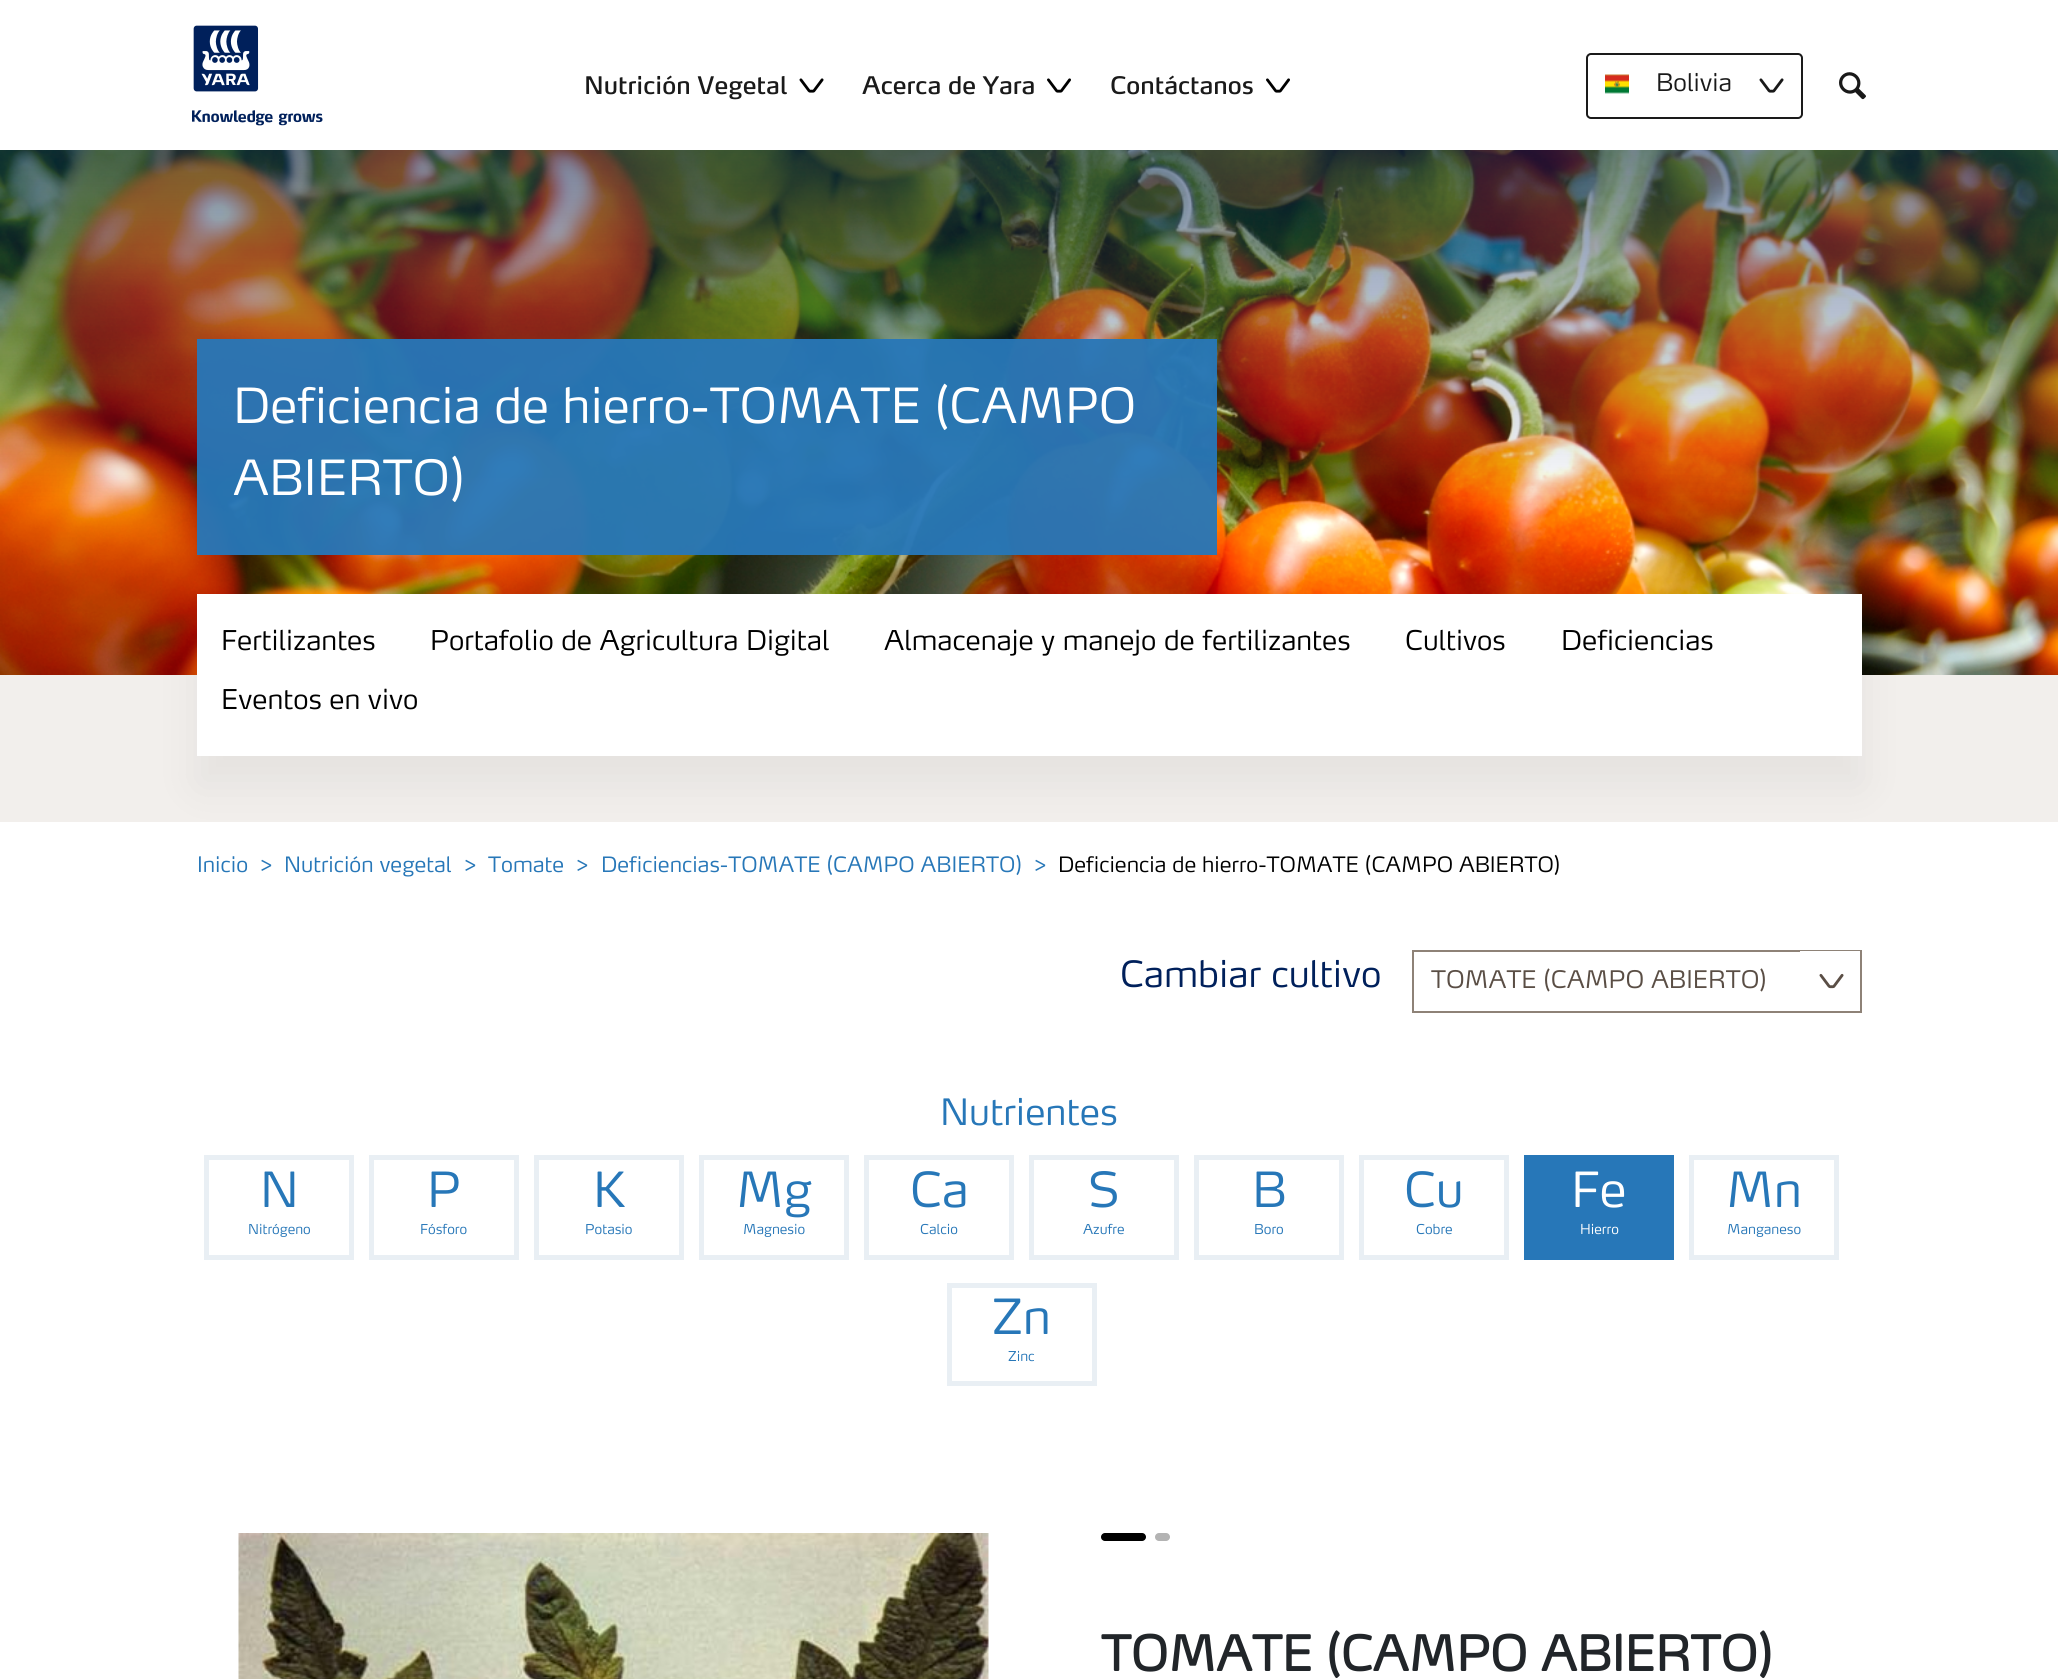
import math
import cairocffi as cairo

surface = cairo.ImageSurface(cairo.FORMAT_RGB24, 2058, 1679)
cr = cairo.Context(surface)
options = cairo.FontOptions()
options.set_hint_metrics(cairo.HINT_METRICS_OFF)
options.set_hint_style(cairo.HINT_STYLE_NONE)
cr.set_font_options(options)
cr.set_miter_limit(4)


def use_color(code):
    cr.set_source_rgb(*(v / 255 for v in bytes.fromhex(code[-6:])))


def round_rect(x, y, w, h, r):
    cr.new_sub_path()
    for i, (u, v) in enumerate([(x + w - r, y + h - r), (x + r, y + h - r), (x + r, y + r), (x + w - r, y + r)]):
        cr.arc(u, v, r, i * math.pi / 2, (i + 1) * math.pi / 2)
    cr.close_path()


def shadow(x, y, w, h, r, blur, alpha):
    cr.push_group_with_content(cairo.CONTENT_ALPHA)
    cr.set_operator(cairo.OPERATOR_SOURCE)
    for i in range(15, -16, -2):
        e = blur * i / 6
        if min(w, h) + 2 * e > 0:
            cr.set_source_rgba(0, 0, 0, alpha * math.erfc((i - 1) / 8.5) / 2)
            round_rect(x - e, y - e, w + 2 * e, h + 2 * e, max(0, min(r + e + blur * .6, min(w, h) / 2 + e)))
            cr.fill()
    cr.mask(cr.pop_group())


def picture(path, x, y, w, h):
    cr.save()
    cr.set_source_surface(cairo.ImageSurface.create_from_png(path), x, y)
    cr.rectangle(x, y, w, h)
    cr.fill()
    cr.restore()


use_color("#ffffff")
cr.paint()
picture("img1.png", 193, 25, 66, 67)
picture("img2.png", 192, 110, 131, 16)
cr.select_font_face("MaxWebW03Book")
cr.set_font_size(24)
use_color("#1a1a1a")
cr.move_to(584, 94)
cr.show_text("Nutrición Vegetal")
picture("img3.png", 799, 78, 25, 15)
cr.move_to(862, 94)
cr.show_text("Acerca de Yara")
picture("img4.png", 1047, 78, 24, 15)
cr.move_to(1110, 94)
cr.show_text("Contáctanos")
picture("img4.png", 1266, 78, 24, 15)
round_rect(1587, 54, 215, 64, 4)
cr.stroke()
picture("img5.png", 1605, 74, 24, 20)
cr.select_font_face("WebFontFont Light")
cr.move_to(1656, 91)
cr.show_text("Bolivia")
picture("img6.png", 1759, 78, 25, 15)
picture("img7.png", 1839, 72, 27, 28)
picture("img8.png", 0, 150, 2058, 525)
cr.set_source_rgba(0.153, 0.467, 0.722, 0.95)
cr.rectangle(197, 339, 1020, 216)
cr.fill()
cr.set_font_size(48)
use_color("#ffffff")
cr.move_to(233, 423)
cr.show_text("Deficiencia de hierro-TOMATE (CAMPO")
cr.move_to(233, 495)
cr.show_text("ABIERTO)")
use_color("#f2efec")
cr.rectangle(0, 675, 2058, 147)
cr.fill()
use_color("#000000")
shadow(197, 624, 1665, 162, 0, 22.5, 0.06)
use_color("#ffffff")
cr.rectangle(197, 594, 1665, 162)
cr.fill()
cr.set_font_size(27)
use_color("#000000")
cr.move_to(221, 650)
cr.show_text("Fertilizantes")
cr.move_to(430, 650)
cr.show_text("Portafolio de Agricultura Digital")
cr.move_to(884, 650)
cr.show_text("Almacenaje y manejo de fertilizantes")
cr.move_to(1405, 650)
cr.show_text("Cultivos")
cr.move_to(1561, 650)
cr.show_text("Deficiencias")
cr.move_to(221, 709)
cr.show_text("Eventos en vivo")
cr.set_font_size(21)
use_color("#2777b8")
cr.move_to(197, 872)
cr.show_text("Inicio")
cr.move_to(260, 872)
cr.show_text(">")
cr.move_to(284, 872)
cr.show_text("Nutrición vegetal")
cr.move_to(464, 872)
cr.show_text(">")
cr.move_to(488, 872)
cr.show_text("Tomate")
cr.move_to(576, 872)
cr.show_text(">")
cr.move_to(601, 872)
cr.show_text("Deficiencias-TOMATE (CAMPO ABIERTO)")
cr.move_to(1034, 872)
cr.show_text(">")
use_color("#000000")
cr.move_to(1058, 872)
cr.show_text("Deficiencia de hierro-TOMATE (CAMPO ABIERTO)")
cr.set_font_size(36)
use_color("#00205b")
cr.move_to(1120, 987)
cr.show_text("Cambiar cultivo")
cr.rectangle(1413, 951, 448, 61)
use_color("#8e8277")
cr.stroke()
cr.set_font_size(24)
use_color("#5a4e45")
cr.move_to(1431, 988)
cr.show_text("TOMATE (CAMPO ABIERTO)")
use_color("#ffffff")
cr.rectangle(1800, 951, 60, 1)
cr.fill()
picture("img9.png", 1819, 973, 25, 16)
cr.set_font_size(36)
use_color("#2777b8")
cr.move_to(940, 1125)
cr.show_text("Nutrientes")
cr.rectangle(206.5, 1157.5, 145, 100)
use_color("#e9eff4")
cr.set_line_width(5)
cr.stroke()
cr.set_font_size(48)
use_color("#2777b8")
cr.move_to(260, 1207)
cr.show_text("N")
cr.set_font_size(13.5)
cr.move_to(248, 1234)
cr.show_text("Nitrógeno")
cr.rectangle(371.5, 1157.5, 145, 100)
use_color("#e9eff4")
cr.stroke()
cr.set_font_size(48)
use_color("#2777b8")
cr.move_to(427, 1207)
cr.show_text("P")
cr.set_font_size(13.5)
cr.move_to(420, 1234)
cr.show_text("Fósforo")
cr.rectangle(536.5, 1157.5, 145, 100)
use_color("#e9eff4")
cr.stroke()
cr.set_font_size(48)
use_color("#2777b8")
cr.move_to(593, 1207)
cr.show_text("K")
cr.set_font_size(13.5)
cr.move_to(585, 1234)
cr.show_text("Potasio")
cr.rectangle(701.5, 1157.5, 145, 100)
use_color("#e9eff4")
cr.stroke()
cr.set_font_size(48)
use_color("#2777b8")
cr.move_to(736, 1207)
cr.show_text("Mg")
cr.set_font_size(13.5)
cr.move_to(743, 1234)
cr.show_text("Magnesio")
cr.rectangle(866.5, 1157.5, 145, 100)
use_color("#e9eff4")
cr.stroke()
cr.set_font_size(48)
use_color("#2777b8")
cr.move_to(910, 1207)
cr.show_text("Ca")
cr.set_font_size(13.5)
cr.move_to(920, 1234)
cr.show_text("Calcio")
cr.rectangle(1031.5, 1157.5, 145, 100)
use_color("#e9eff4")
cr.stroke()
cr.set_font_size(48)
use_color("#2777b8")
cr.move_to(1088, 1207)
cr.show_text("S")
cr.set_font_size(13.5)
cr.move_to(1083, 1234)
cr.show_text("Azufre")
cr.rectangle(1196.5, 1157.5, 145, 100)
use_color("#e9eff4")
cr.stroke()
cr.set_font_size(48)
use_color("#2777b8")
cr.move_to(1252, 1207)
cr.show_text("B")
cr.set_font_size(13.5)
cr.move_to(1254, 1234)
cr.show_text("Boro")
cr.rectangle(1361.5, 1157.5, 145, 100)
use_color("#e9eff4")
cr.stroke()
cr.set_font_size(48)
use_color("#2777b8")
cr.move_to(1404, 1207)
cr.show_text("Cu")
cr.set_font_size(13.5)
cr.move_to(1416, 1234)
cr.show_text("Cobre")
cr.rectangle(1524, 1155, 150, 105)
cr.fill()
cr.set_font_size(48)
use_color("#ffffff")
cr.move_to(1571, 1207)
cr.show_text("Fe")
cr.set_font_size(13.5)
cr.move_to(1580, 1234)
cr.show_text("Hierro")
cr.rectangle(1691.5, 1157.5, 145, 100)
use_color("#e9eff4")
cr.stroke()
cr.set_font_size(48)
use_color("#2777b8")
cr.move_to(1726, 1207)
cr.show_text("Mn")
cr.set_font_size(13.5)
cr.move_to(1727, 1234)
cr.show_text("Manganeso")
cr.rectangle(949.5, 1285.5, 145, 98)
use_color("#e9eff4")
cr.stroke()
cr.set_font_size(48)
use_color("#2777b8")
cr.move_to(992, 1334)
cr.show_text("Zn")
cr.set_font_size(13.5)
cr.move_to(1008, 1361)
cr.show_text("Zinc")
use_color("#000000")
round_rect(1101, 1533, 45, 8, 4)
cr.fill()
use_color("#b3b3b3")
round_rect(1155, 1533, 15, 8, 4)
cr.fill()
picture("img10.png", 238, 1533, 751, 146)
cr.select_font_face("WebFontFont", cairo.FONT_SLANT_NORMAL, cairo.FONT_WEIGHT_BOLD)
cr.set_font_size(48)
use_color("#212529")
cr.move_to(1101, 1671)
cr.show_text("TOMATE (CAMPO ABIERTO)")
surface.write_to_png("result.png")
